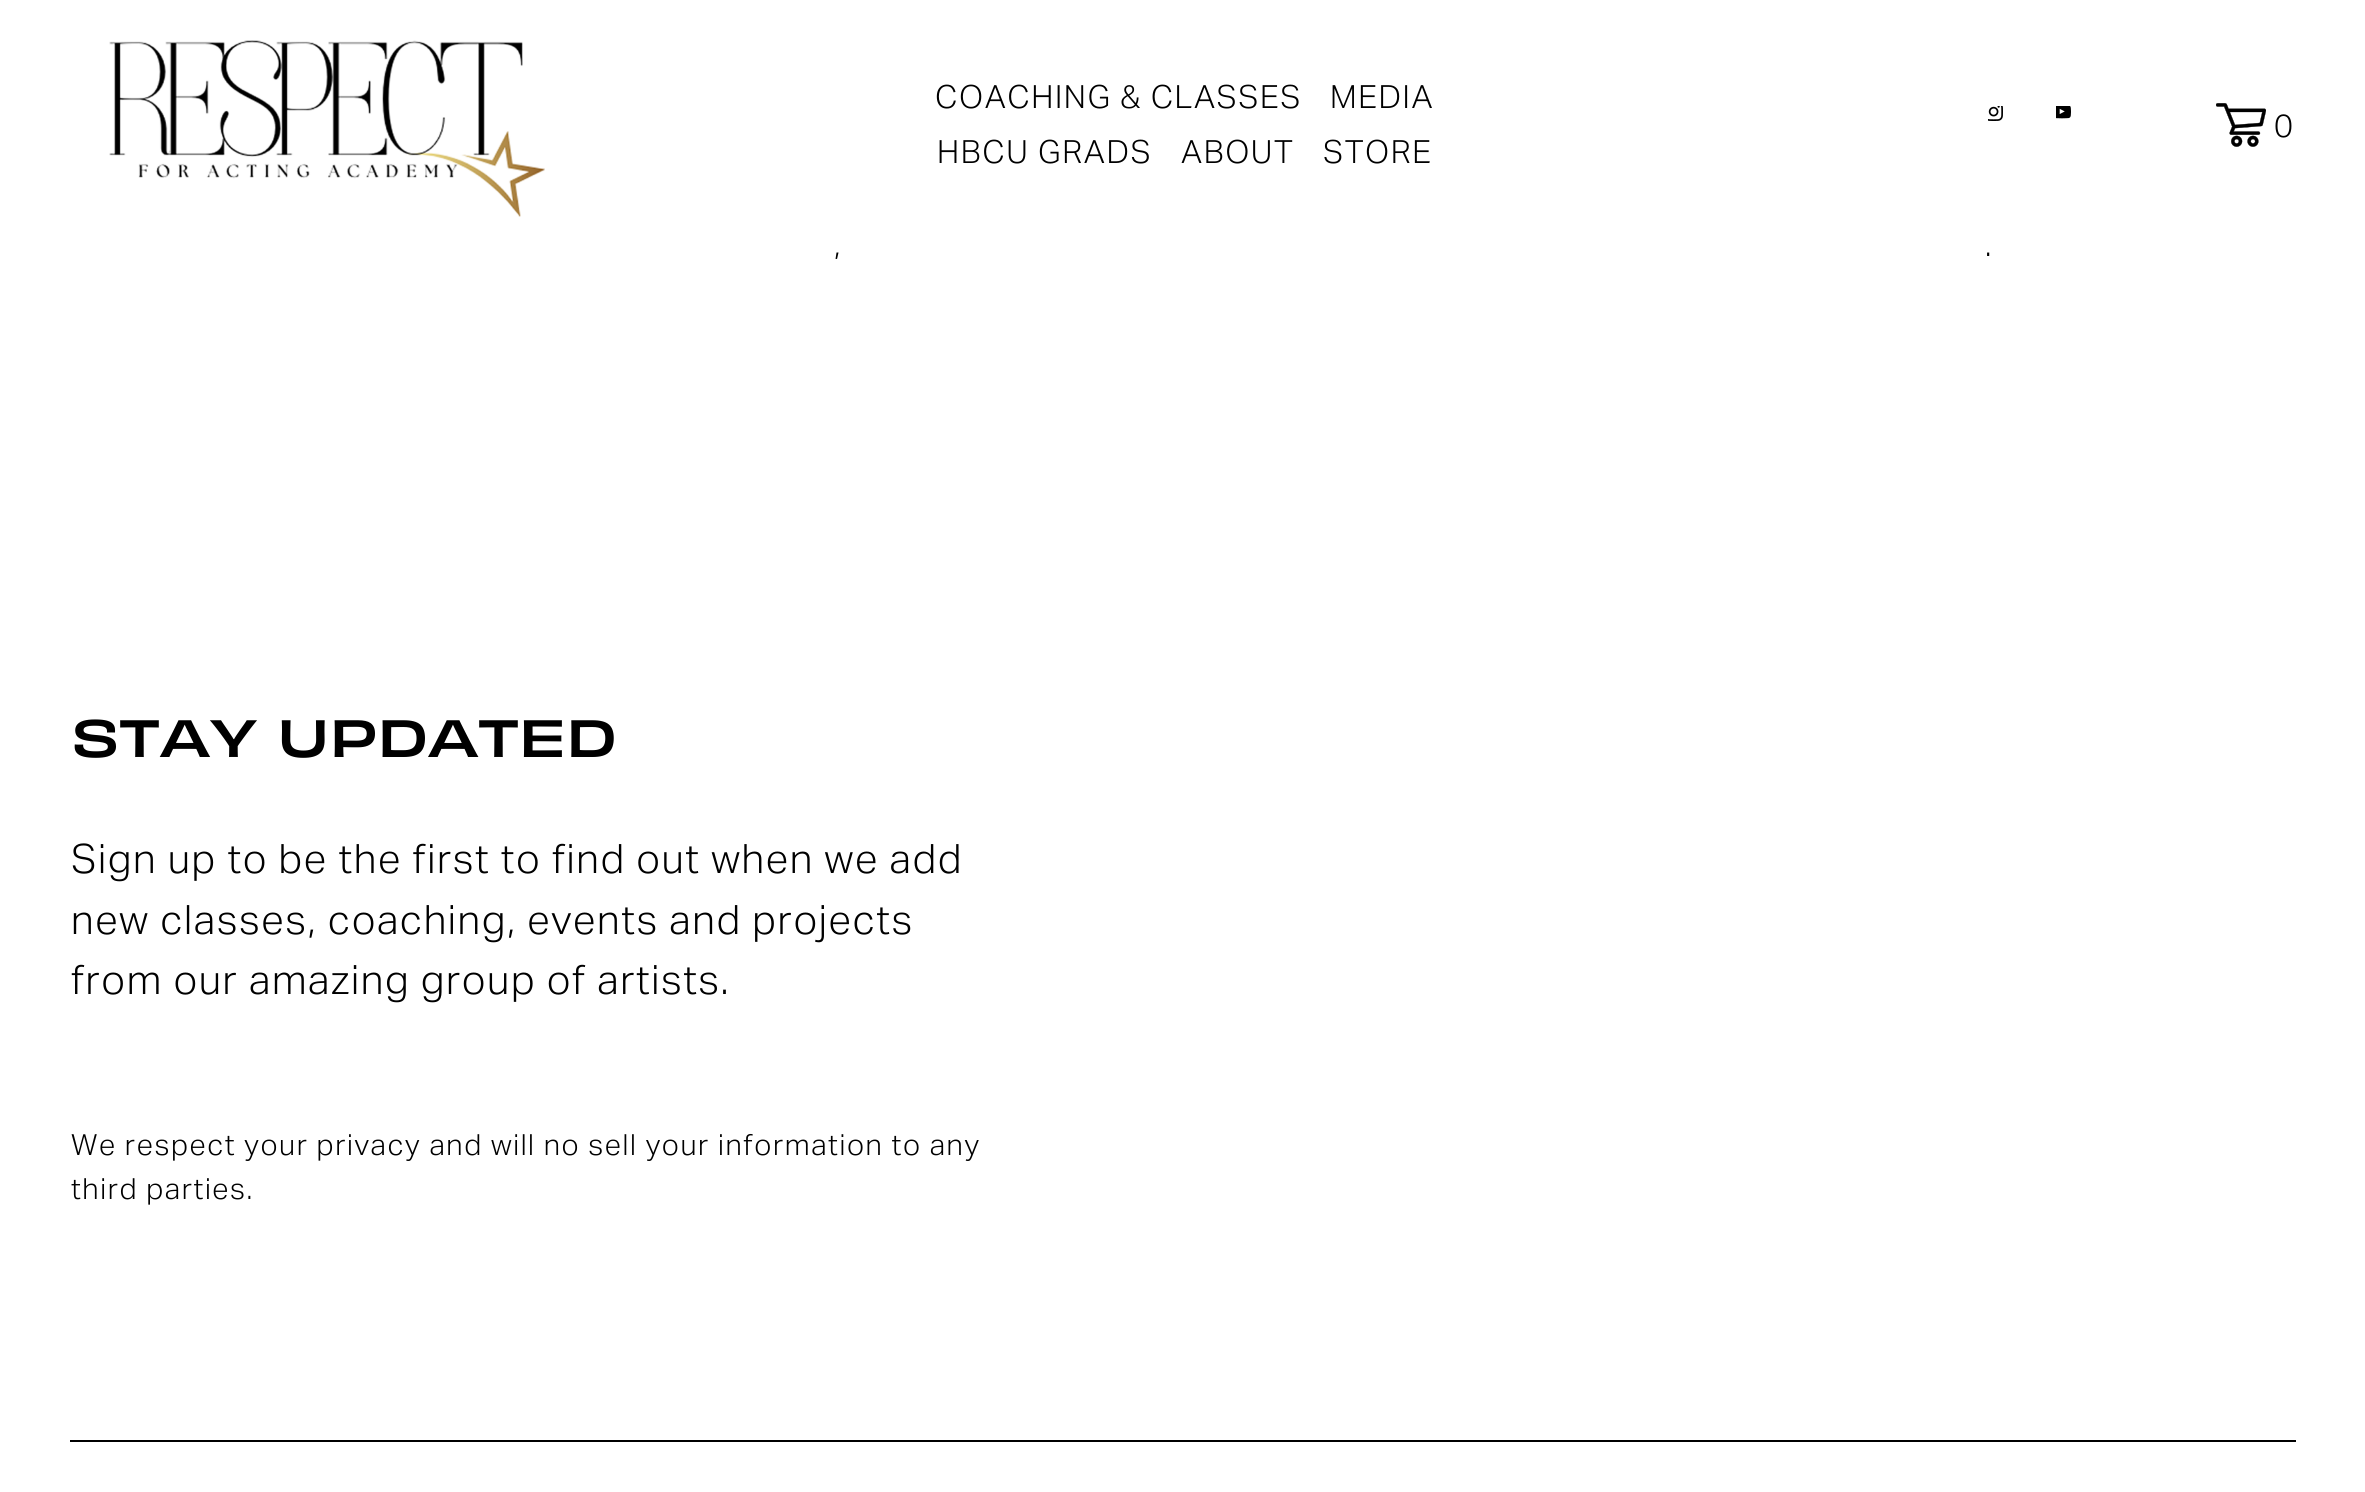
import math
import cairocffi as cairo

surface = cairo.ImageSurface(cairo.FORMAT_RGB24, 2365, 1492)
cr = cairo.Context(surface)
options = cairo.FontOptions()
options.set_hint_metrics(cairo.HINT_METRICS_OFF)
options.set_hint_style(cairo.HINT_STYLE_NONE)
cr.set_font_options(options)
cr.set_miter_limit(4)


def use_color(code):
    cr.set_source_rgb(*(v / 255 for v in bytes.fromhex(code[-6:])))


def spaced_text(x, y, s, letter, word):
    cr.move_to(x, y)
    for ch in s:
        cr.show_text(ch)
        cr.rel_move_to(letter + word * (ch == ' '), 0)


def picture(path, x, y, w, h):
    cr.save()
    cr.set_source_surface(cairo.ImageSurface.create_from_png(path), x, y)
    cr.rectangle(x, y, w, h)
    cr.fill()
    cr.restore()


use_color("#ffffff")
cr.paint()
picture("img1.png", 109, 40, 436, 177)
cr.select_font_face("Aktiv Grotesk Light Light")
cr.set_font_size(32)
use_color("#000000")
spaced_text(935, 108, "COACHING & CLASSES", 1.6, 0)
spaced_text(1330, 108, "MEDIA", 1.6, 0)
spaced_text(937, 163, "HBCU GRADS", 1.6, 0)
spaced_text(1181, 163, "ABOUT", 1.6, 0)
spaced_text(1323, 163, "STORE", 1.6, 0)
picture("img2.png", 1988, 106, 15, 15)
picture("img3.png", 2056, 106, 15, 13)
picture("img4.png", 2216, 103, 50, 44)
spaced_text(2274, 137, "0", 1.6, 0)
spaced_text(834, 256, ",", 1.6, 0)
spaced_text(1985, 256, ".", 1.6, 0)
cr.select_font_face("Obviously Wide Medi", cairo.FONT_SLANT_NORMAL, cairo.FONT_WEIGHT_BOLD)
cr.set_font_size(49)
cr.move_to(71, 757)
cr.show_text("STAY UPDATED")
cr.select_font_face("Aktiv Grotesk Light Light")
cr.set_font_size(40.5)
spaced_text(71, 873, "Sign up to be the first to find out when we add", 1.6, 0)
spaced_text(71, 934, "new classes, coaching, events and projects", 1.6, 0)
spaced_text(71, 994, "from our amazing group of artists.", 1.6, 0)
cr.set_font_size(29.15)
spaced_text(71, 1155, "We respect your privacy and will no sell your information to any", 1.6, 0)
spaced_text(71, 1199, "third parties.", 1.6, 0)
cr.rectangle(70, 1440, 2226, 2)
cr.fill()
surface.write_to_png("result.png")
